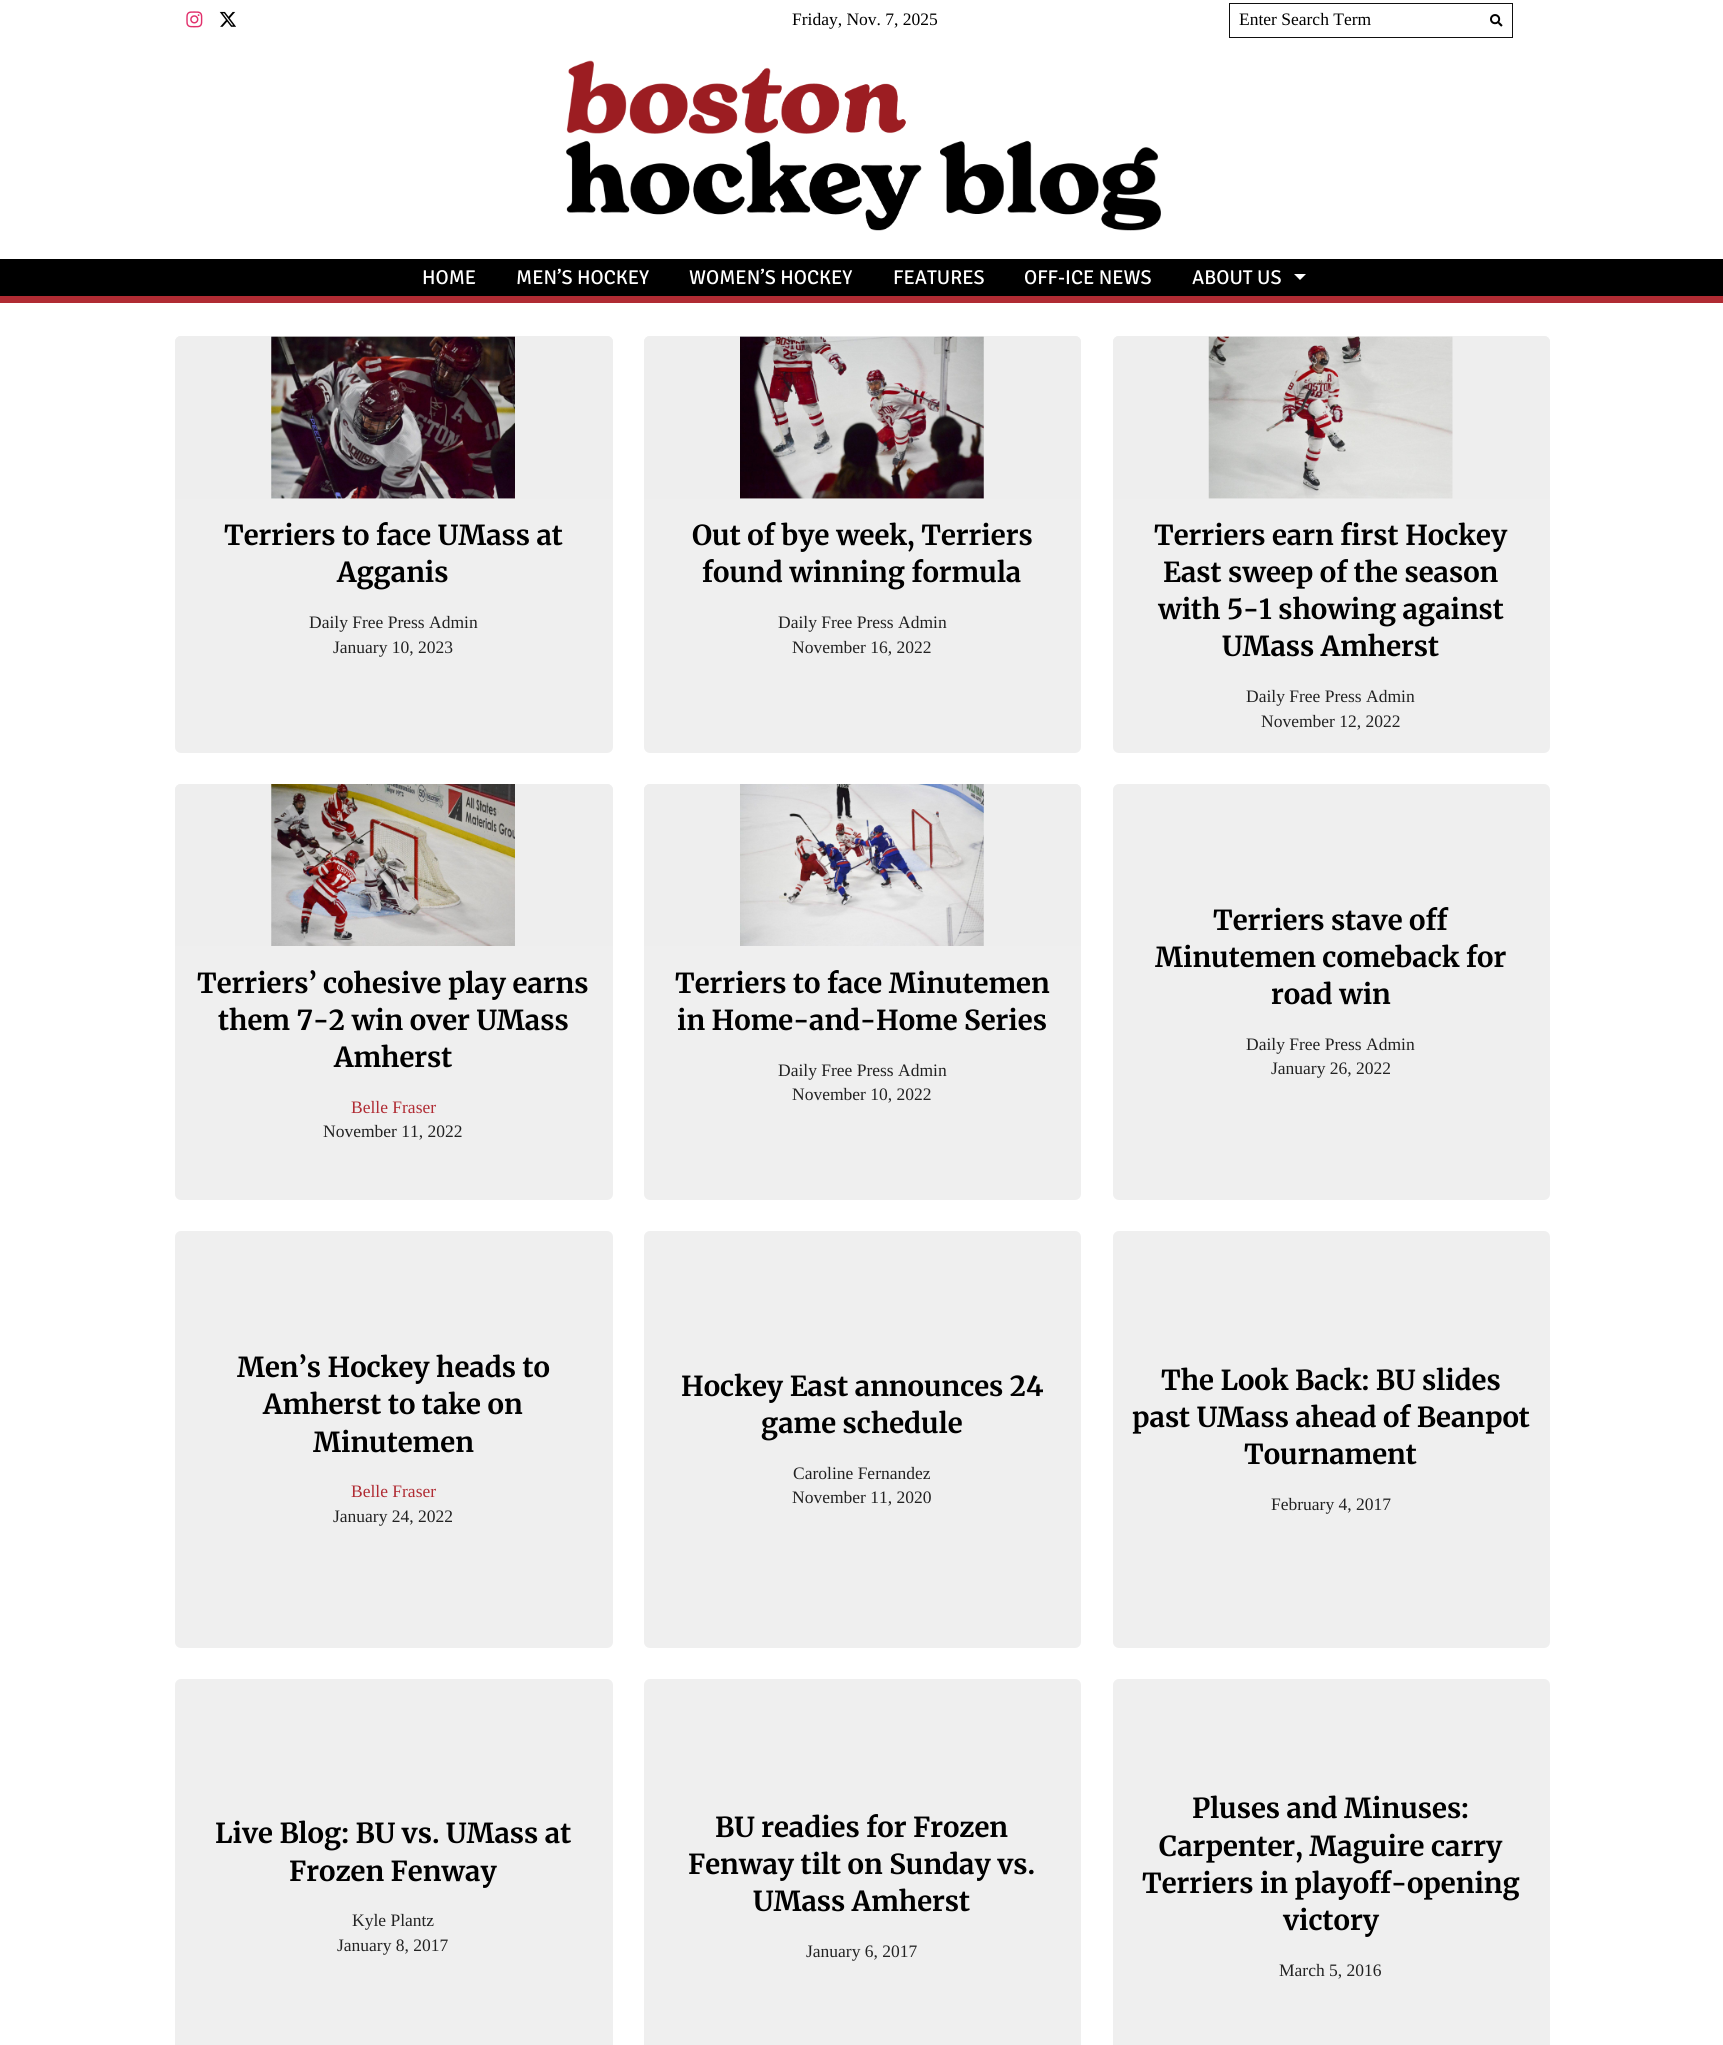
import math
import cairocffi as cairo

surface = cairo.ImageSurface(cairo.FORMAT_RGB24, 1723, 2045)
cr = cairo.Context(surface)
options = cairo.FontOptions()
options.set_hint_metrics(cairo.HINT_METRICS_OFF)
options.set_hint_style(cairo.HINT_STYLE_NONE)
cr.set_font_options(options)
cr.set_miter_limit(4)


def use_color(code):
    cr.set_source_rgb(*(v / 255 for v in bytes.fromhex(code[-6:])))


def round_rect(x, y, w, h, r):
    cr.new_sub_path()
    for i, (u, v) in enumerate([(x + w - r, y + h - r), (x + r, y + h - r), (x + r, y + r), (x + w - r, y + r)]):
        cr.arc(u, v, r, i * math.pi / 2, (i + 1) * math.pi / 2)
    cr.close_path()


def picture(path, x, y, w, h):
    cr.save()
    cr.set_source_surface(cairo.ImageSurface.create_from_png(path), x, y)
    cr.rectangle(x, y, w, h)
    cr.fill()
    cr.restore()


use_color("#ffffff")
cr.paint()
picture("img1.png", 186, 11, 17, 17)
picture("img2.png", 219, 11, 17, 16)
cr.select_font_face("Liberation Serif")
cr.set_font_size(17.5)
use_color("#000000")
cr.move_to(792, 25)
cr.show_text("Friday, Nov. 7, 2025")
cr.rectangle(1229.5, 3.5, 283, 34)
use_color("#0f0f0f")
cr.set_line_width(1)
cr.stroke()
use_color("#000000")
cr.move_to(1239, 25)
cr.show_text("Enter Search Term")
picture("img3.png", 1490, 14, 13, 13)
picture("img4.png", 566, 60, 595, 171)
cr.rectangle(0, 259, 1723, 37)
cr.fill()
use_color("#b02b33")
cr.rectangle(0, 296, 1723, 7)
cr.fill()
cr.select_font_face("Signika")
cr.set_font_size(20)
use_color("#ffffff")
cr.move_to(422, 284)
cr.show_text("HOME")
cr.move_to(516, 284)
cr.show_text("MEN’S HOCKEY")
cr.move_to(689, 284)
cr.show_text("WOMEN’S HOCKEY")
cr.move_to(893, 284)
cr.show_text("FEATURES")
cr.move_to(1024, 284)
cr.show_text("OFF-ICE NEWS")
cr.move_to(1192, 284)
cr.show_text("ABOUT US")
cr.new_path()
cr.move_to(1294, 274)
cr.line_to(1306, 274)
cr.line_to(1300, 280)
cr.close_path()
cr.fill()
use_color("#efefef")
round_rect(175, 336, 438, 417, 6)
cr.fill()
use_color("#eeeeee")
cr.new_path()
cr.move_to(181, 336)
cr.line_to(607, 336)
cr.curve_to(610.5, 336, 613, 338.5, 613, 342)
cr.line_to(613, 499)
cr.line_to(175, 499)
cr.line_to(175, 342)
cr.curve_to(175, 338.5, 177.5, 336, 181, 336)
cr.close_path()
cr.fill()
picture("img5.png", 271, 336, 244, 163)
cr.select_font_face("Merriweather", cairo.FONT_SLANT_NORMAL, cairo.FONT_WEIGHT_BOLD)
cr.set_font_size(27.5)
use_color("#000000")
cr.move_to(224, 545)
cr.show_text("Terriers to face UMass at")
cr.move_to(337, 582)
cr.show_text("Agganis")
cr.select_font_face("Liberation Serif")
cr.set_font_size(17.5)
use_color("#222222")
cr.move_to(309, 628)
cr.show_text("Daily Free Press Admin")
cr.move_to(333, 653)
cr.show_text("January 10, 2023")
use_color("#efefef")
round_rect(644, 336, 437, 417, 6)
cr.fill()
use_color("#eeeeee")
cr.new_path()
cr.move_to(650, 336)
cr.line_to(1075, 336)
cr.curve_to(1078.5, 336, 1081, 338.5, 1081, 342)
cr.line_to(1081, 499)
cr.line_to(644, 499)
cr.line_to(644, 342)
cr.curve_to(644, 338.5, 646.5, 336, 650, 336)
cr.close_path()
cr.fill()
picture("img6.png", 740, 336, 244, 163)
cr.select_font_face("Merriweather", cairo.FONT_SLANT_NORMAL, cairo.FONT_WEIGHT_BOLD)
cr.set_font_size(27.5)
use_color("#000000")
cr.move_to(692, 545)
cr.show_text("Out of bye week, Terriers")
cr.move_to(702, 582)
cr.show_text("found winning formula")
cr.select_font_face("Liberation Serif")
cr.set_font_size(17.5)
use_color("#222222")
cr.move_to(778, 628)
cr.show_text("Daily Free Press Admin")
cr.move_to(792, 653)
cr.show_text("November 16, 2022")
use_color("#efefef")
round_rect(1113, 336, 437, 417, 6)
cr.fill()
use_color("#eeeeee")
cr.new_path()
cr.move_to(1119, 336)
cr.line_to(1544, 336)
cr.curve_to(1547.5, 336, 1550, 338.5, 1550, 342)
cr.line_to(1550, 499)
cr.line_to(1113, 499)
cr.line_to(1113, 342)
cr.curve_to(1113, 338.5, 1115.5, 336, 1119, 336)
cr.close_path()
cr.fill()
picture("img7.png", 1208, 336, 245, 163)
cr.select_font_face("Merriweather", cairo.FONT_SLANT_NORMAL, cairo.FONT_WEIGHT_BOLD)
cr.set_font_size(27.5)
use_color("#000000")
cr.move_to(1154, 545)
cr.show_text("Terriers earn first Hockey")
cr.move_to(1163, 582)
cr.show_text("East sweep of the season")
cr.move_to(1158, 619)
cr.show_text("with 5-1 showing against")
cr.move_to(1222, 656)
cr.show_text("UMass Amherst")
cr.select_font_face("Liberation Serif")
cr.set_font_size(17.5)
use_color("#222222")
cr.move_to(1246, 702)
cr.show_text("Daily Free Press Admin")
cr.move_to(1261, 727)
cr.show_text("November 12, 2022")
use_color("#efefef")
round_rect(175, 784, 438, 416, 6)
cr.fill()
use_color("#eeeeee")
cr.new_path()
cr.move_to(181, 784)
cr.line_to(607, 784)
cr.curve_to(610.5, 784, 613, 786.5, 613, 790)
cr.line_to(613, 946)
cr.line_to(175, 946)
cr.line_to(175, 790)
cr.curve_to(175, 786.5, 177.5, 784, 181, 784)
cr.close_path()
cr.fill()
picture("img8.png", 271, 784, 244, 162)
cr.select_font_face("Merriweather", cairo.FONT_SLANT_NORMAL, cairo.FONT_WEIGHT_BOLD)
cr.set_font_size(27.5)
use_color("#000000")
cr.move_to(197, 993)
cr.show_text("Terriers’ cohesive play earns")
cr.move_to(218, 1030)
cr.show_text("them 7-2 win over UMass")
cr.move_to(334, 1067)
cr.show_text("Amherst")
cr.select_font_face("Liberation Serif")
cr.set_font_size(17.5)
use_color("#b02b33")
cr.move_to(351, 1113)
cr.show_text("Belle Fraser")
use_color("#222222")
cr.move_to(323, 1137)
cr.show_text("November 11, 2022")
use_color("#efefef")
round_rect(644, 784, 437, 416, 6)
cr.fill()
use_color("#eeeeee")
cr.new_path()
cr.move_to(650, 784)
cr.line_to(1075, 784)
cr.curve_to(1078.5, 784, 1081, 786.5, 1081, 790)
cr.line_to(1081, 946)
cr.line_to(644, 946)
cr.line_to(644, 790)
cr.curve_to(644, 786.5, 646.5, 784, 650, 784)
cr.close_path()
cr.fill()
picture("img9.png", 740, 784, 244, 162)
cr.select_font_face("Merriweather", cairo.FONT_SLANT_NORMAL, cairo.FONT_WEIGHT_BOLD)
cr.set_font_size(27.5)
use_color("#000000")
cr.move_to(675, 993)
cr.show_text("Terriers to face Minutemen")
cr.move_to(677, 1030)
cr.show_text("in Home-and-Home Series")
cr.select_font_face("Liberation Serif")
cr.set_font_size(17.5)
use_color("#222222")
cr.move_to(778, 1076)
cr.show_text("Daily Free Press Admin")
cr.move_to(792, 1100)
cr.show_text("November 10, 2022")
use_color("#efefef")
round_rect(1113, 784, 437, 416, 6)
cr.fill()
cr.select_font_face("Merriweather", cairo.FONT_SLANT_NORMAL, cairo.FONT_WEIGHT_BOLD)
cr.set_font_size(27.5)
use_color("#000000")
cr.move_to(1213, 930)
cr.show_text("Terriers stave off")
cr.move_to(1155, 967)
cr.show_text("Minutemen comeback for")
cr.move_to(1271, 1004)
cr.show_text("road win")
cr.select_font_face("Liberation Serif")
cr.set_font_size(17.5)
use_color("#222222")
cr.move_to(1246, 1050)
cr.show_text("Daily Free Press Admin")
cr.move_to(1271, 1074)
cr.show_text("January 26, 2022")
use_color("#efefef")
round_rect(175, 1231, 438, 417, 6)
cr.fill()
cr.select_font_face("Merriweather", cairo.FONT_SLANT_NORMAL, cairo.FONT_WEIGHT_BOLD)
cr.set_font_size(27.5)
use_color("#000000")
cr.move_to(237, 1377)
cr.show_text("Men’s Hockey heads to")
cr.move_to(263, 1414)
cr.show_text("Amherst to take on")
cr.move_to(313, 1452)
cr.show_text("Minutemen")
cr.select_font_face("Liberation Serif")
cr.set_font_size(17.5)
use_color("#b02b33")
cr.move_to(351, 1497)
cr.show_text("Belle Fraser")
use_color("#222222")
cr.move_to(333, 1522)
cr.show_text("January 24, 2022")
use_color("#efefef")
round_rect(644, 1231, 437, 417, 6)
cr.fill()
cr.select_font_face("Merriweather", cairo.FONT_SLANT_NORMAL, cairo.FONT_WEIGHT_BOLD)
cr.set_font_size(27.5)
use_color("#000000")
cr.move_to(681, 1396)
cr.show_text("Hockey East announces 24")
cr.move_to(761, 1433)
cr.show_text("game schedule")
cr.select_font_face("Liberation Serif")
cr.set_font_size(17.5)
use_color("#222222")
cr.move_to(793, 1479)
cr.show_text("Caroline Fernandez")
cr.move_to(792, 1503)
cr.show_text("November 11, 2020")
use_color("#efefef")
round_rect(1113, 1231, 437, 417, 6)
cr.fill()
cr.select_font_face("Merriweather", cairo.FONT_SLANT_NORMAL, cairo.FONT_WEIGHT_BOLD)
cr.set_font_size(27.5)
use_color("#000000")
cr.move_to(1161, 1390)
cr.show_text("The Look Back: BU slides")
cr.move_to(1132, 1427)
cr.show_text("past UMass ahead of Beanpot")
cr.move_to(1244, 1464)
cr.show_text("Tournament")
cr.select_font_face("Liberation Serif")
cr.set_font_size(17.5)
use_color("#222222")
cr.move_to(1271, 1510)
cr.show_text("February 4, 2017")
use_color("#efefef")
round_rect(175, 1679, 438, 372, 6)
cr.fill()
cr.select_font_face("Merriweather", cairo.FONT_SLANT_NORMAL, cairo.FONT_WEIGHT_BOLD)
cr.set_font_size(27.5)
use_color("#000000")
cr.move_to(215, 1843)
cr.show_text("Live Blog: BU vs. UMass at")
cr.move_to(289, 1881)
cr.show_text("Frozen Fenway")
cr.select_font_face("Liberation Serif")
cr.set_font_size(17.5)
use_color("#222222")
cr.move_to(352, 1926)
cr.show_text("Kyle Plantz")
cr.move_to(337, 1951)
cr.show_text("January 8, 2017")
use_color("#efefef")
round_rect(644, 1679, 437, 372, 6)
cr.fill()
cr.select_font_face("Merriweather", cairo.FONT_SLANT_NORMAL, cairo.FONT_WEIGHT_BOLD)
cr.set_font_size(27.5)
use_color("#000000")
cr.move_to(715, 1837)
cr.show_text("BU readies for Frozen")
cr.move_to(688, 1874)
cr.show_text("Fenway tilt on Sunday vs.")
cr.move_to(753, 1911)
cr.show_text("UMass Amherst")
cr.select_font_face("Liberation Serif")
cr.set_font_size(17.5)
use_color("#222222")
cr.move_to(806, 1957)
cr.show_text("January 6, 2017")
use_color("#efefef")
round_rect(1113, 1679, 437, 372, 6)
cr.fill()
cr.select_font_face("Merriweather", cairo.FONT_SLANT_NORMAL, cairo.FONT_WEIGHT_BOLD)
cr.set_font_size(27.5)
use_color("#000000")
cr.move_to(1192, 1818)
cr.show_text("Pluses and Minuses:")
cr.move_to(1159, 1856)
cr.show_text("Carpenter, Maguire carry")
cr.move_to(1142, 1893)
cr.show_text("Terriers in playoff-opening")
cr.move_to(1283, 1930)
cr.show_text("victory")
cr.select_font_face("Liberation Serif")
cr.set_font_size(17.5)
use_color("#222222")
cr.move_to(1279, 1976)
cr.show_text("March 5, 2016")
surface.write_to_png("result.png")
